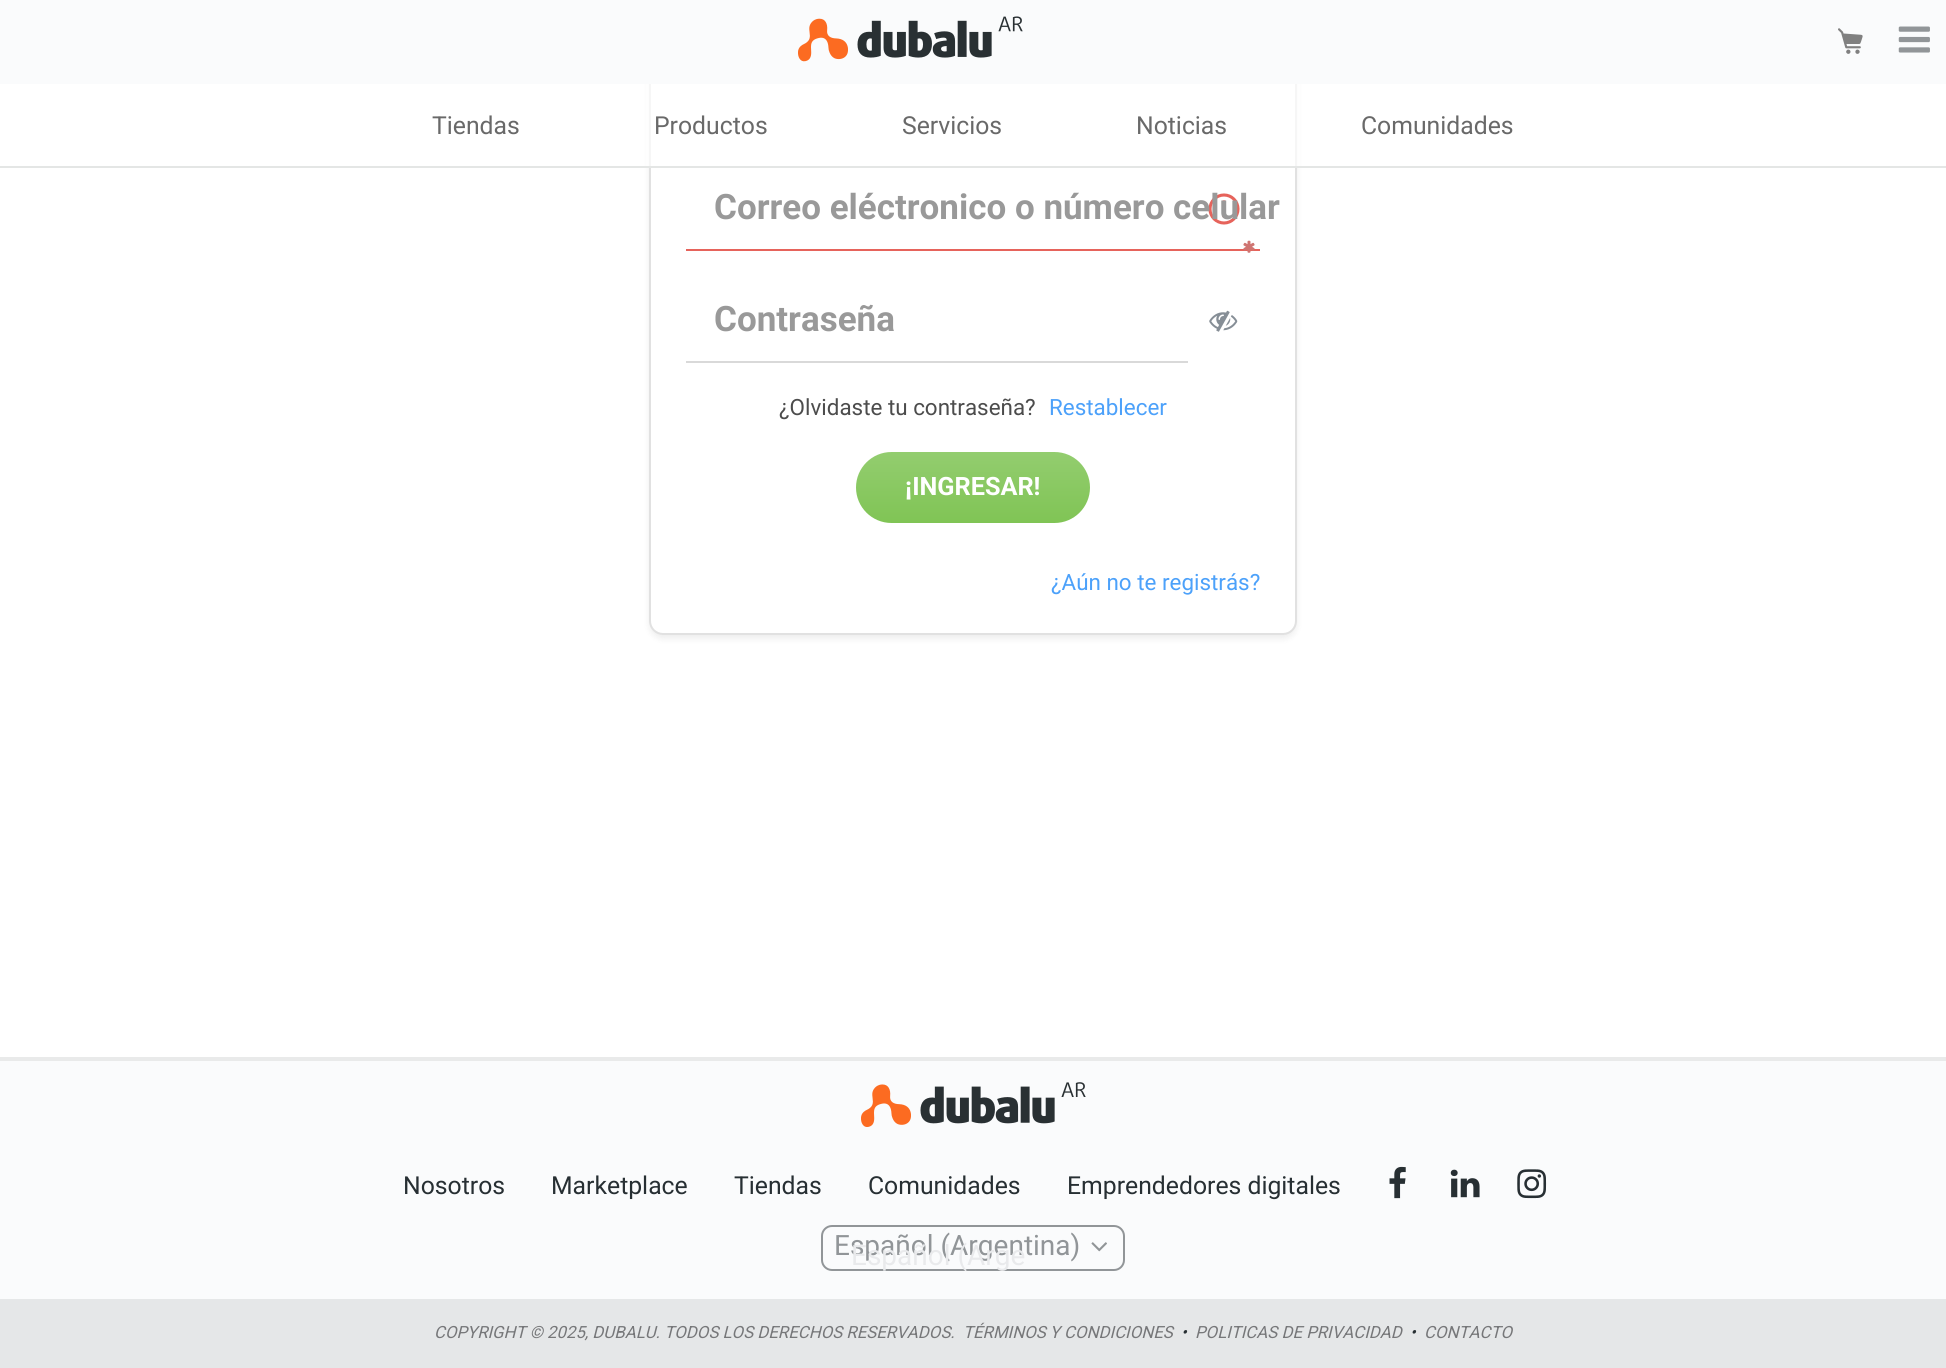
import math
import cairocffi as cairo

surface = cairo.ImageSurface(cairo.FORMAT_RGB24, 1946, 1368)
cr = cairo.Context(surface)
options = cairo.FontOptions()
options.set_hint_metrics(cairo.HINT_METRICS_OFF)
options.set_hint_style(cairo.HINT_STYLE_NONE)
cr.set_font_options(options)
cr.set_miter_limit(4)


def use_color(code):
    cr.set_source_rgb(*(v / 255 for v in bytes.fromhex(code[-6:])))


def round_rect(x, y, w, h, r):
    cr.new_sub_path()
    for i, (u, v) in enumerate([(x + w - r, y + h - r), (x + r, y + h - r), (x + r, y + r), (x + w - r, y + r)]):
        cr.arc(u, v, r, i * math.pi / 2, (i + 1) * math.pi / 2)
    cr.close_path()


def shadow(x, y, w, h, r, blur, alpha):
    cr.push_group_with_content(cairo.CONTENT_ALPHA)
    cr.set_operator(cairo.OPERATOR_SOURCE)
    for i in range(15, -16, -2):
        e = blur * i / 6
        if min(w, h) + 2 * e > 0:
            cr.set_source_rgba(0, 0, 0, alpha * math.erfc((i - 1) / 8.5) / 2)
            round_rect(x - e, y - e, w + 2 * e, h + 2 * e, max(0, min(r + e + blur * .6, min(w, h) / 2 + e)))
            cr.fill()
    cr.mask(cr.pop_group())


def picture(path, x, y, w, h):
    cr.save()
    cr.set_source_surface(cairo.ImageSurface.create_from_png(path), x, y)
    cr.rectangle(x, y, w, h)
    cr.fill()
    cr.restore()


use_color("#ffffff")
cr.paint()
use_color("#000000")
shadow(649, 49, 648, 590, 14, 3.5, 0.07)
use_color("#ffffff")
round_rect(649, 46, 648, 589, 14)
cr.fill()
round_rect(650, 47, 646, 587, 13)
cr.set_source_rgba(0, 0, 0, 0.12)
cr.stroke()
use_color("#fafbfc")
cr.rectangle(0, 0, 1946, 84)
cr.fill()
picture("img1.png", 798, 18, 50, 44)
picture("img2.png", 857, 16, 166, 42)
picture("img3.png", 1838, 28, 25, 26)
picture("img4.png", 1898, 26, 32, 27)
cr.set_source_rgba(1, 1, 1, 0.7)
cr.rectangle(646, 84, 654, 82)
cr.fill()
use_color("#e4e6e5")
cr.rectangle(0, 166, 1946, 2)
cr.fill()
cr.select_font_face("Roboto")
cr.set_font_size(24.75)
use_color("#696969")
cr.move_to(432, 134)
cr.show_text("Tiendas")
cr.move_to(654, 134)
cr.show_text("Productos")
cr.move_to(902, 134)
cr.show_text("Servicios")
cr.move_to(1136, 134)
cr.show_text("Noticias")
cr.move_to(1361, 134)
cr.show_text("Comunidades")
cr.new_path()
cr.arc(1224, 209, 14, 0, 2 * math.pi)
use_color("#e6635b")
cr.set_line_width(3.1)
cr.stroke()
cr.new_path()
cr.move_to(1223.5, 202)
cr.line_to(1224.5, 202)
cr.line_to(1224, 210.5)
cr.close_path()
cr.set_line_join(cairo.LINE_JOIN_ROUND)
cr.stroke()
cr.arc(1224.1, 215.9, 1.8, 0, 2 * math.pi)
cr.fill()
cr.select_font_face("Roboto", cairo.FONT_SLANT_NORMAL, cairo.FONT_WEIGHT_BOLD)
cr.set_font_size(35)
use_color("#999999")
cr.move_to(714, 219)
cr.show_text("Correo eléctronico o número celular")
use_color("#e6635b")
cr.rectangle(686, 249, 574, 2)
cr.fill()
picture("img5.png", 1243, 240, 12, 13)
use_color("#999999")
cr.move_to(714, 331)
cr.show_text("Contraseña")
use_color("#d9d9d9")
cr.rectangle(686, 361, 502, 2)
cr.fill()
picture("img6.png", 1209, 310, 29, 22)
cr.select_font_face("Roboto")
cr.set_font_size(22.4)
use_color("#4c4c4c")
cr.move_to(779, 415)
cr.show_text("¿Olvidaste tu contraseña?")
use_color("#4ca1fa")
cr.move_to(1049, 415)
cr.show_text("Restablecer")
gradient = cairo.LinearGradient(973, 452, 973, 523)
gradient.add_color_stop_rgba(0, 0.576, 0.804, 0.435, 1)
gradient.add_color_stop_rgba(1, 0.502, 0.769, 0.333, 1)
cr.set_source(gradient)
round_rect(856, 452, 234, 71, 35.5)
cr.fill()
cr.select_font_face("Roboto", cairo.FONT_SLANT_NORMAL, cairo.FONT_WEIGHT_BOLD)
cr.set_font_size(25.25)
use_color("#ffffff")
cr.move_to(905, 495)
cr.show_text("¡INGRESAR!")
cr.select_font_face("Roboto")
cr.set_font_size(22.4)
use_color("#4ca1fa")
cr.move_to(1051, 590)
cr.show_text("¿Aún no te registrás?")
use_color("#fafbfc")
cr.rectangle(0, 1061, 1946, 238)
cr.fill()
use_color("#e9eaea")
cr.rectangle(0, 1057, 1946, 4)
cr.fill()
picture("img7.png", 861, 1084, 50, 43)
picture("img8.png", 920, 1082, 166, 42)
cr.set_font_size(24.75)
use_color("#272f33")
cr.move_to(403, 1194)
cr.show_text("Nosotros")
cr.move_to(551, 1194)
cr.show_text("Marketplace")
cr.move_to(734, 1194)
cr.show_text("Tiendas")
cr.move_to(868, 1194)
cr.show_text("Comunidades")
cr.move_to(1067, 1194)
cr.show_text("Emprendedores digitales")
picture("img9.png", 1389, 1166, 17, 33)
picture("img10.png", 1450, 1169, 30, 29)
picture("img11.png", 1517, 1169, 30, 30)
round_rect(822, 1226, 302, 44, 10)
use_color("#919598")
cr.set_line_width(2)
cr.set_line_join(cairo.LINE_JOIN_MITER)
cr.stroke()
cr.set_font_size(28)
cr.move_to(834, 1255)
cr.show_text("Español (Argentina)")
picture("img12.png", 1091, 1242, 16, 10)
use_color("#e9eaec")
cr.move_to(851, 1265)
cr.show_text("Español (Arge")
use_color("#e5e7e8")
cr.rectangle(0, 1299, 1946, 69)
cr.fill()
cr.select_font_face("Roboto", cairo.FONT_SLANT_ITALIC)
cr.set_font_size(16.8)
use_color("#767779")
cr.move_to(434, 1338)
cr.show_text("COPYRIGHT © 2025, DUBALU. TODOS LOS DERECHOS RESERVADOS.")
cr.move_to(963, 1338)
cr.show_text("TÉRMINOS Y CONDICIONES")
use_color("#272f33")
cr.move_to(1181, 1338)
cr.show_text("•")
use_color("#767779")
cr.move_to(1195, 1338)
cr.show_text("POLITICAS DE PRIVACIDAD")
use_color("#272f33")
cr.move_to(1410, 1338)
cr.show_text("•")
use_color("#767779")
cr.move_to(1424, 1338)
cr.show_text("CONTACTO")
surface.write_to_png("result.png")
